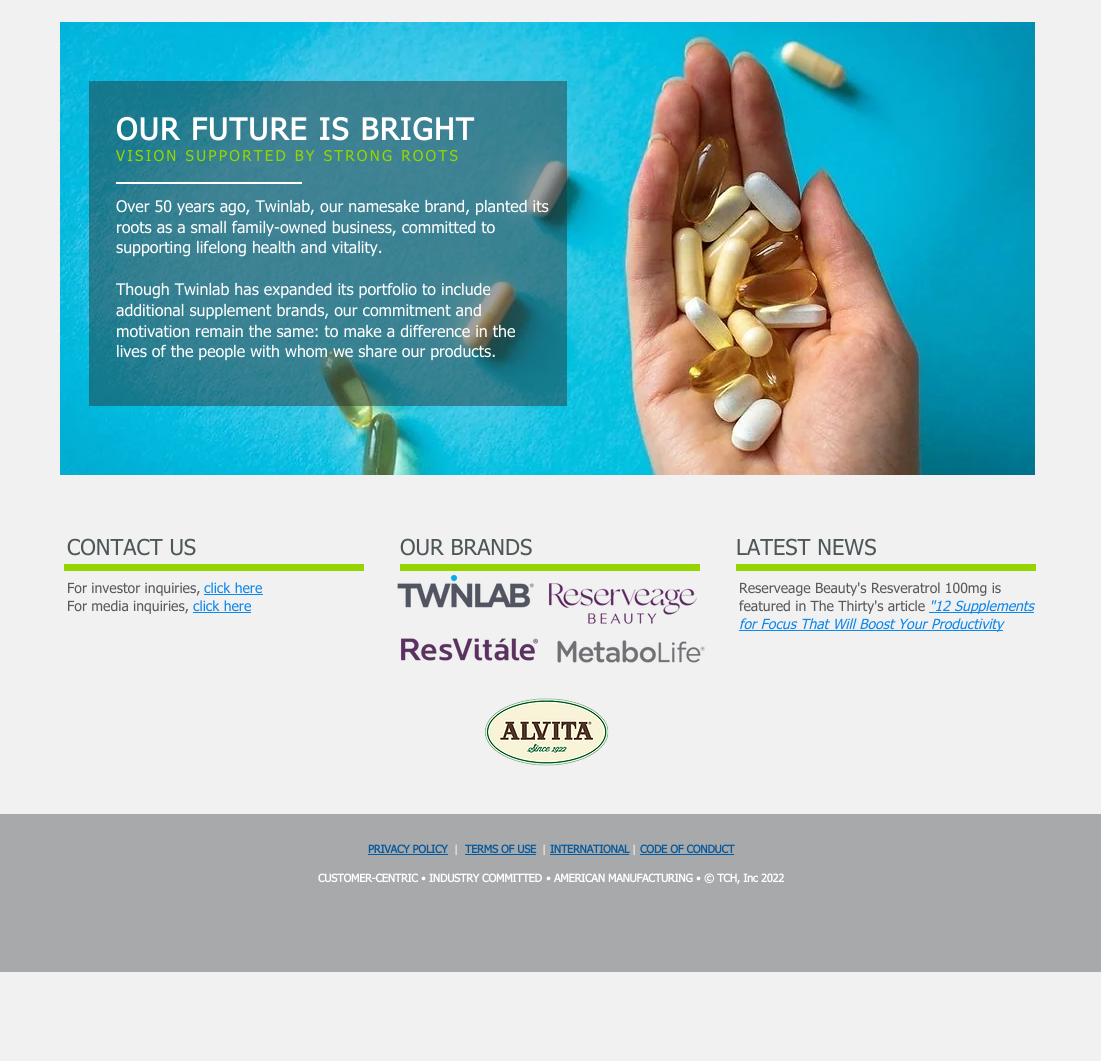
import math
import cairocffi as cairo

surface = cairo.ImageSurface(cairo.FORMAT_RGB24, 1101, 1061)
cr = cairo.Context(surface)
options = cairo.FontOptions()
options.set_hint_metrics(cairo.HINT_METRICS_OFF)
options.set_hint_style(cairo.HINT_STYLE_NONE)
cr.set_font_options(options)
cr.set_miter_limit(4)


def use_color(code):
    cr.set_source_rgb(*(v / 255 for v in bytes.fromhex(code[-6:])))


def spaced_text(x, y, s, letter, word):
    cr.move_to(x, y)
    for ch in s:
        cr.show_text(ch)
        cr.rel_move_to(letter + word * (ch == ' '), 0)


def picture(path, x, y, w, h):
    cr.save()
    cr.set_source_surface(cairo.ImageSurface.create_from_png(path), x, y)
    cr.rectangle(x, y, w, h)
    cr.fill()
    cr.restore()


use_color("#f1f1f2")
cr.paint()
picture("img1.png", 60, 22, 975, 453)
cr.set_source_rgba(0.165, 0.165, 0.165, 0.45)
cr.rectangle(89, 81, 478, 325)
cr.fill()
cr.select_font_face("tahoma", cairo.FONT_SLANT_NORMAL, cairo.FONT_WEIGHT_BOLD)
cr.set_font_size(30)
use_color("#ffffff")
spaced_text(116, 140, "OUR FUTURE IS BRIGHT", 1.5, 0)
cr.select_font_face("tahoma")
cr.set_font_size(15)
use_color("#94d500")
spaced_text(116, 161, "VISION SUPPORTED BY STRONG ROOTS", 2.25, 0)
cr.set_font_size(16)
use_color("#ffffff")
cr.move_to(116, 212)
cr.show_text("Over 50 years ago, Twinlab, our namesake brand, planted its")
cr.move_to(116, 233)
cr.show_text("roots as a small family-owned business, committed to")
cr.move_to(116, 253)
cr.show_text("supporting lifelong health and vitality.")
cr.move_to(116, 295)
cr.show_text("Though Twinlab has expanded its portfolio to include")
cr.move_to(116, 316)
cr.show_text("additional supplement brands, our commitment and")
cr.move_to(116, 337)
cr.show_text("motivation remain the same: to make a difference in the")
cr.move_to(116, 357)
cr.show_text("lives of the people with whom we share our products.")
cr.rectangle(116, 182, 186, 2)
cr.fill()
cr.set_font_size(22)
use_color("#4e5758")
cr.move_to(67, 555)
cr.show_text("CONTACT US")
cr.move_to(400, 555)
cr.show_text("OUR BRANDS")
cr.move_to(736, 555)
cr.show_text("LATEST NEWS")
use_color("#94d500")
cr.rectangle(64, 564, 300, 7)
cr.fill()
cr.rectangle(400, 564, 300, 7)
cr.fill()
cr.rectangle(736, 564, 300, 7)
cr.fill()
cr.set_font_size(14)
use_color("#58585b")
cr.move_to(67, 593)
cr.show_text("For investor inquiries,")
use_color("#0e87ea")
cr.move_to(204, 593)
cr.show_text("click here")
cr.rectangle(204, 594, 59, 1)
cr.fill()
use_color("#58585b")
cr.move_to(67, 611)
cr.show_text("For media inquiries,")
use_color("#0e87ea")
cr.move_to(193, 611)
cr.show_text("click here")
cr.rectangle(193, 612, 58, 1)
cr.fill()
picture("img2.png", 397, 574, 137, 34)
picture("img3.png", 548, 583, 149, 41)
use_color("#58585b")
cr.move_to(739, 593)
cr.show_text("Reserveage Beauty's Resveratrol 100mg is")
cr.move_to(739, 611)
cr.show_text("featured in The Thirty's article")
use_color("#0e87ea")
cr.rectangle(929, 612, 105, 1)
cr.fill()
cr.select_font_face("tahoma", cairo.FONT_SLANT_ITALIC)
cr.move_to(929, 611)
cr.show_text("\"12 Supplements")
cr.rectangle(739, 630, 264, 1)
cr.fill()
cr.move_to(739, 629)
cr.show_text("for Focus That Will Boost Your Productivity")
picture("img4.png", 400, 638, 139, 23)
picture("img5.png", 557, 640, 148, 23)
picture("img6.png", 485, 698, 124, 68)
use_color("#a7a9ab")
cr.rectangle(0, 814, 1101, 158)
cr.fill()
cr.select_font_face("tahoma", cairo.FONT_SLANT_NORMAL, cairo.FONT_WEIGHT_BOLD)
cr.set_font_size(11)
use_color("#095a9c")
spaced_text(368, 853, "PRIVACY POLICY", -0.25, 0)
cr.rectangle(368, 854, 80, 1)
cr.fill()
cr.select_font_face("tahoma")
use_color("#ffffff")
spaced_text(454, 853, "|", -0.25, 0)
cr.select_font_face("tahoma", cairo.FONT_SLANT_NORMAL, cairo.FONT_WEIGHT_BOLD)
use_color("#095a9c")
spaced_text(465, 853, "TERMS OF USE", -0.25, 0)
cr.rectangle(465, 854, 71, 1)
cr.fill()
cr.select_font_face("tahoma")
use_color("#ffffff")
spaced_text(542, 853, "|", -0.25, 0)
cr.select_font_face("tahoma", cairo.FONT_SLANT_NORMAL, cairo.FONT_WEIGHT_BOLD)
use_color("#095a9c")
spaced_text(550, 853, "INTERNATIONAL", -0.25, 0)
cr.rectangle(550, 854, 79, 1)
cr.fill()
cr.select_font_face("tahoma")
use_color("#ffffff")
spaced_text(632, 853, "|", -0.25, 0)
cr.select_font_face("tahoma", cairo.FONT_SLANT_NORMAL, cairo.FONT_WEIGHT_BOLD)
use_color("#095a9c")
spaced_text(640, 853, "CODE OF CONDUCT", -0.25, 0)
cr.rectangle(640, 854, 94, 1)
cr.fill()
use_color("#ffffff")
spaced_text(318, 882, "CUSTOMER-CENTRIC", -0.25, 0)
cr.select_font_face("tahoma")
spaced_text(421, 882, "•", -0.25, 0)
cr.select_font_face("tahoma", cairo.FONT_SLANT_NORMAL, cairo.FONT_WEIGHT_BOLD)
spaced_text(429, 882, "INDUSTRY COMMITTED", -0.25, 0)
cr.select_font_face("tahoma")
spaced_text(546, 882, "•", -0.25, 0)
cr.select_font_face("tahoma", cairo.FONT_SLANT_NORMAL, cairo.FONT_WEIGHT_BOLD)
spaced_text(554, 882, "AMERICAN MANUFACTURING", -0.25, 0)
cr.select_font_face("tahoma")
spaced_text(696, 882, "•", -0.25, 0)
cr.select_font_face("tahoma", cairo.FONT_SLANT_NORMAL, cairo.FONT_WEIGHT_BOLD)
spaced_text(704, 882, "© TCH, Inc 2022", -0.25, 0)
surface.write_to_png("result.png")
